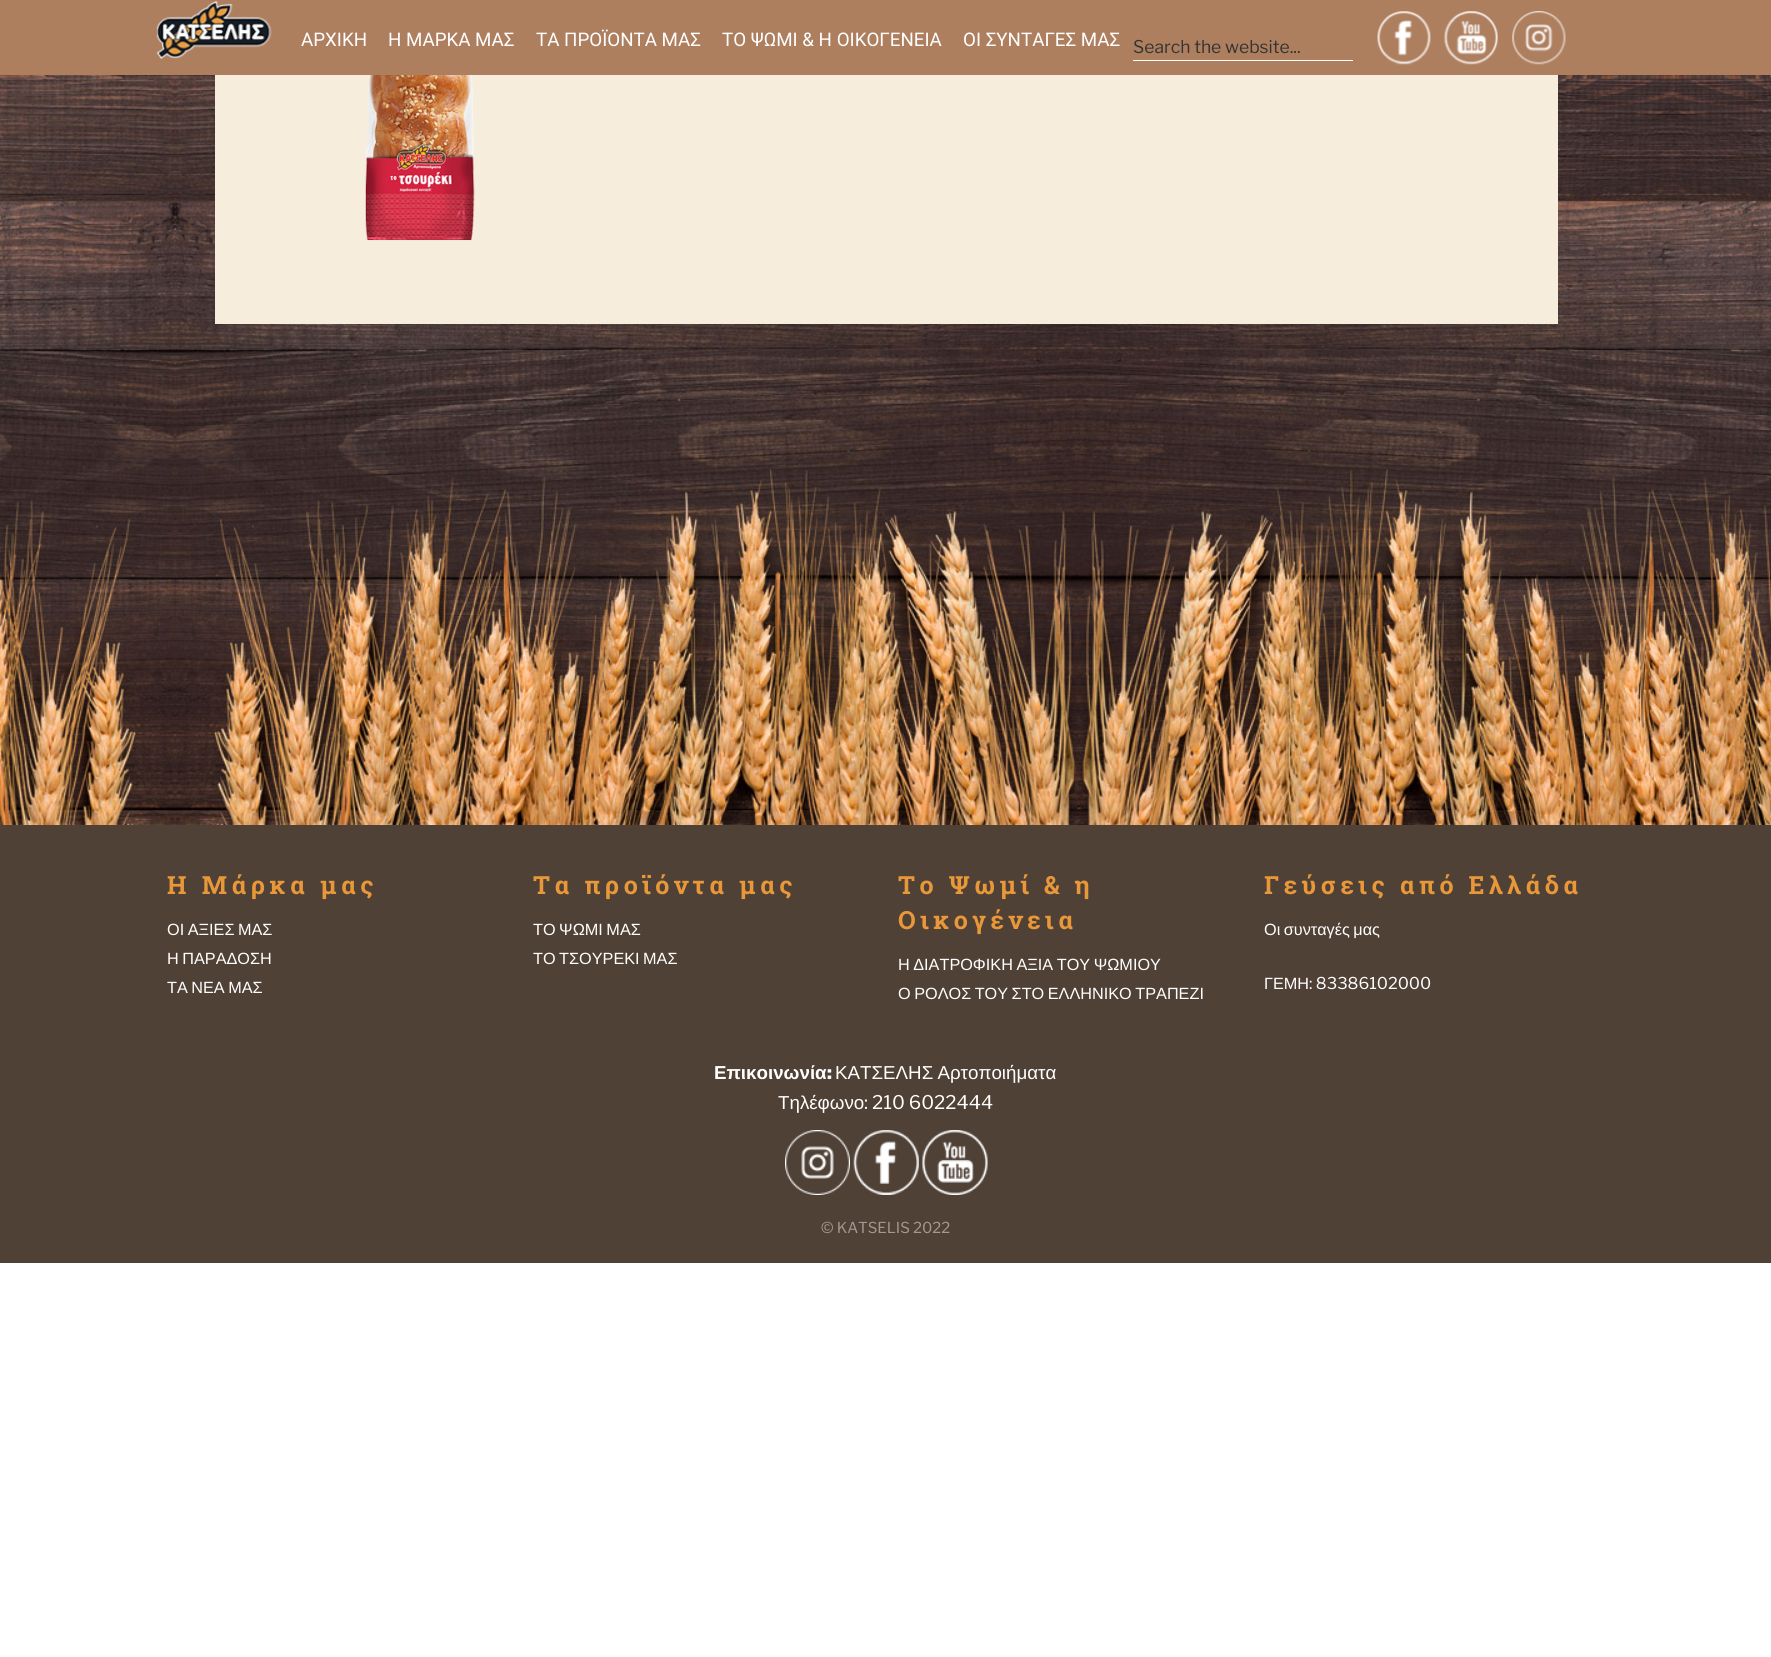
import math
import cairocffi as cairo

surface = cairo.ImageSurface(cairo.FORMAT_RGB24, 1771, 1657)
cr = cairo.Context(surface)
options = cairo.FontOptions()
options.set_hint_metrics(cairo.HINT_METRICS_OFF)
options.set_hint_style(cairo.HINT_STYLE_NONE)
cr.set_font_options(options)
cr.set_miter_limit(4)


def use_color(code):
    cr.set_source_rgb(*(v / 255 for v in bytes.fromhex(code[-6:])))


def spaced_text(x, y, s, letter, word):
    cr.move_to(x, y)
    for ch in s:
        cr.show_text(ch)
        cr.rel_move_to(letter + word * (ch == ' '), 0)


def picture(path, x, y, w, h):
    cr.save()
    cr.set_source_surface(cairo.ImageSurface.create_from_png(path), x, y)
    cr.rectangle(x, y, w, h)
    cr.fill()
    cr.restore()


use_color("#ffffff")
cr.paint()
use_color("#ae7f5f")
cr.rectangle(0, 0, 1771, 75)
cr.fill()
picture("img1.png", 156, 1, 116, 59)
cr.select_font_face("Roboto")
cr.set_font_size(18.75)
use_color("#ffffff")
cr.move_to(301, 46)
cr.show_text("ΑΡΧΙΚΗ")
cr.move_to(388, 46)
cr.show_text("Η ΜΑΡΚΑ ΜΑΣ")
cr.move_to(536, 46)
cr.show_text("ΤΑ ΠΡΟΪΟΝΤΑ ΜΑΣ")
cr.move_to(722, 46)
cr.show_text("ΤΟ ΨΩΜΙ & Η ΟΙΚΟΓΕΝΕΙΑ")
cr.move_to(963, 46)
cr.show_text("ΟΙ ΣΥΝΤΑΓΕΣ ΜΑΣ")
cr.rectangle(1133, 60, 220, 1)
cr.fill()
cr.select_font_face("Libre Franklin")
cr.set_font_size(17.5)
use_color("#333333")
cr.move_to(1133, 53)
cr.show_text("Search the website...")
picture("img2.png", 1377, 11, 54, 54)
picture("img3.png", 1444, 11, 54, 54)
picture("img4.png", 1512, 11, 54, 54)
picture("img5.png", 0, 75, 1771, 750)
use_color("#f6eddd")
cr.rectangle(215, 75, 1343, 249)
cr.fill()
picture("img6.png", 365, 75, 110, 166)
use_color("#504137")
cr.rectangle(0, 825, 1771, 438)
cr.fill()
cr.select_font_face("Roboto Slab", cairo.FONT_SLANT_NORMAL, cairo.FONT_WEIGHT_BOLD)
cr.set_font_size(25)
use_color("#e89739")
spaced_text(167, 894, "Η Μάρκα μας", 4.5, 0)
cr.select_font_face("Liberation Sans")
cr.set_font_size(16.25)
use_color("#ffffff")
spaced_text(167, 935, "ΟΙ ΑΞΙΕΣ ΜΑΣ", 0, -1)
spaced_text(167, 964, "Η ΠΑΡΑΔΟΣΗ", 0, -1)
spaced_text(167, 993, "ΤΑ ΝΕΑ ΜΑΣ", 0, -1)
cr.select_font_face("Roboto Slab", cairo.FONT_SLANT_NORMAL, cairo.FONT_WEIGHT_BOLD)
cr.set_font_size(25)
use_color("#e89739")
spaced_text(533, 894, "Τα προϊόντα μας", 4.5, 0)
cr.select_font_face("Liberation Sans")
cr.set_font_size(16.25)
use_color("#ffffff")
spaced_text(533, 935, "ΤΟ ΨΩΜΙ ΜΑΣ", 0, -1)
spaced_text(533, 964, "ΤΟ ΤΣΟΥΡΕΚΙ ΜΑΣ", 0, -1)
cr.select_font_face("Roboto Slab", cairo.FONT_SLANT_NORMAL, cairo.FONT_WEIGHT_BOLD)
cr.set_font_size(25)
use_color("#e89739")
spaced_text(898, 894, "Το Ψωμί & η", 4.5, 0)
spaced_text(898, 929, "Οικογένεια", 4.5, 0)
cr.select_font_face("Liberation Sans")
cr.set_font_size(16.25)
use_color("#ffffff")
spaced_text(898, 970, "Η ΔΙΑΤΡΟΦΙΚΗ ΑΞΙΑ ΤΟΥ ΨΩΜΙΟΥ", 0, -1)
spaced_text(898, 999, "Ο ΡΟΛΟΣ ΤΟΥ ΣΤΟ ΕΛΛΗΝΙΚΟ ΤΡΑΠΕΖΙ", 0, -1)
cr.select_font_face("Roboto Slab", cairo.FONT_SLANT_NORMAL, cairo.FONT_WEIGHT_BOLD)
cr.set_font_size(25)
use_color("#e89739")
spaced_text(1264, 894, "Γεύσεις από Ελλάδα", 4.5, 0)
cr.select_font_face("Liberation Sans")
cr.set_font_size(16.25)
use_color("#ffffff")
spaced_text(1264, 935, "Οι συνταγές μας", 0, -1)
cr.move_to(1264, 989)
cr.show_text("ΓΕΜΗ")
cr.select_font_face("Libre Franklin")
cr.move_to(1309, 989)
cr.show_text(": 83386102000")
cr.select_font_face("Liberation Sans", cairo.FONT_SLANT_NORMAL, cairo.FONT_WEIGHT_BOLD)
cr.set_font_size(18.75)
cr.move_to(714, 1079)
cr.show_text("Επικοινωνία")
cr.select_font_face("Libre Franklin ExtraBold")
cr.move_to(827, 1079)
cr.show_text(":")
cr.select_font_face("Liberation Sans")
spaced_text(835, 1079, "ΚΑΤΣΕΛΗΣ Αρτοποιήματα", 0, -1)
cr.move_to(778, 1109)
cr.show_text("Τηλέφωνο")
cr.select_font_face("Libre Franklin")
cr.move_to(864, 1109)
cr.show_text(": 210 6022444")
picture("img7.png", 785, 1130, 65, 65)
picture("img8.png", 853, 1130, 66, 65)
picture("img9.png", 922, 1130, 66, 65)
cr.set_font_size(15)
use_color("#a39992")
cr.move_to(821, 1233)
cr.show_text("© KATSELIS 2022")
surface.write_to_png("result.png")
